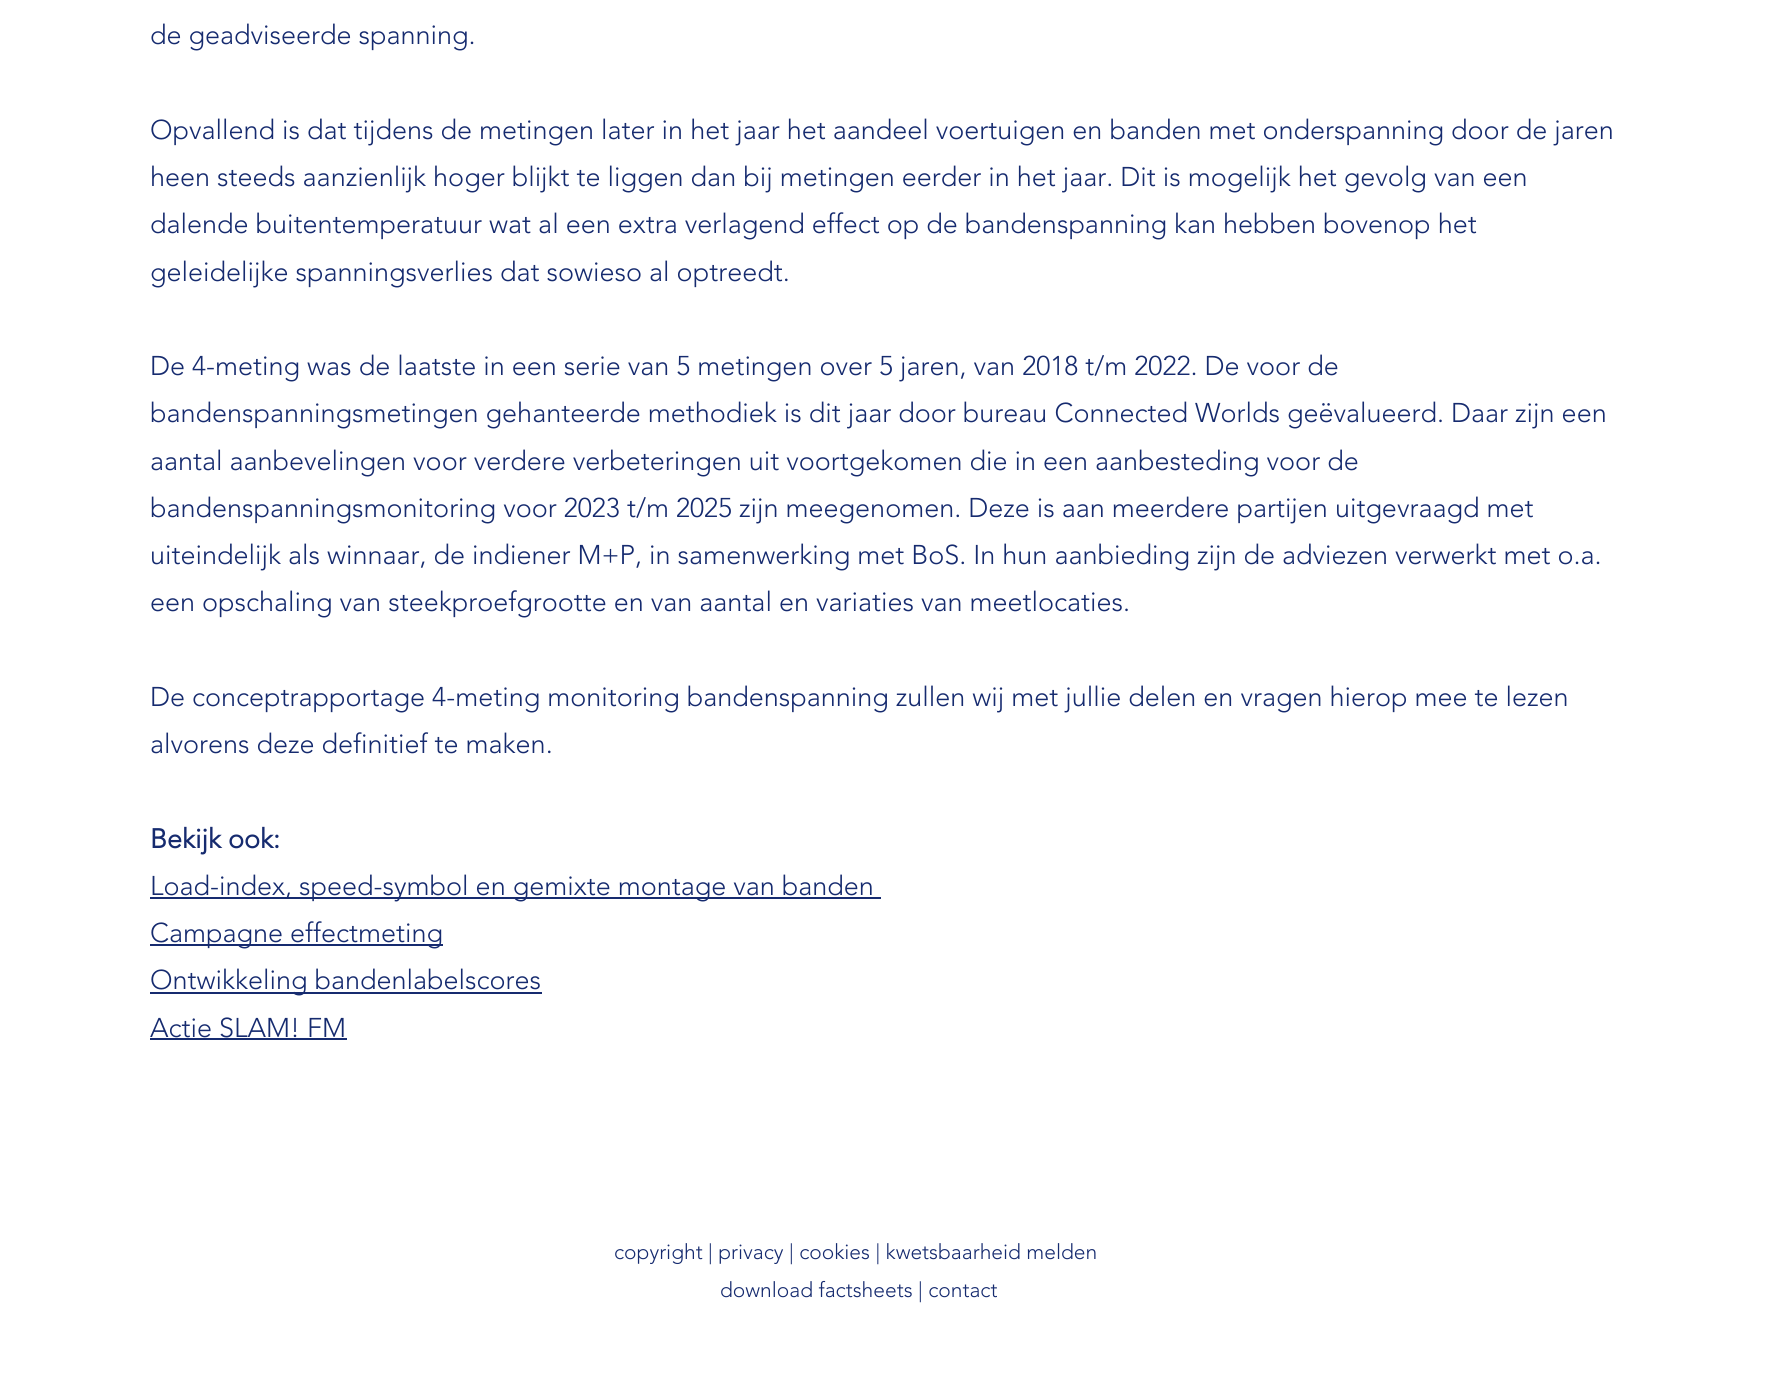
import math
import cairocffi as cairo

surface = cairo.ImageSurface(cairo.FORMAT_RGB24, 1770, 1382)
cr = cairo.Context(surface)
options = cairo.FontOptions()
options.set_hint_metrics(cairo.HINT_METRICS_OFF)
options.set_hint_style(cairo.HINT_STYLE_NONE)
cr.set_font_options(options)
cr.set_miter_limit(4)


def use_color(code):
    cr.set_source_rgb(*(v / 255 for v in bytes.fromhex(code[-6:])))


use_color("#ffffff")
cr.paint()
cr.select_font_face("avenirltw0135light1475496 Light")
cr.set_font_size(27)
use_color("#162b6f")
cr.move_to(150, 44)
cr.show_text("de geadviseerde spanning.")
cr.move_to(150, 139)
cr.show_text("Opvallend is dat tijdens de metingen later in het jaar het aandeel voertuigen en banden met onderspanning door de jaren")
cr.move_to(150, 186)
cr.show_text("heen steeds aanzienlijk hoger blijkt te liggen dan bij metingen eerder in het jaar. Dit is mogelijk het gevolg van een")
cr.move_to(150, 233)
cr.show_text("dalende buitentemperatuur wat al een extra verlagend effect op de bandenspanning kan hebben bovenop het")
cr.move_to(150, 281)
cr.show_text("geleidelijke spanningsverlies dat sowieso al optreedt.")
cr.move_to(150, 375)
cr.show_text("De 4-meting was de laatste in een serie van 5 metingen over 5 jaren, van 2018 t/m 2022. De voor de")
cr.move_to(150, 422)
cr.show_text("bandenspanningsmetingen gehanteerde methodiek is dit jaar door bureau Connected Worlds geëvalueerd. Daar zijn een")
cr.move_to(150, 470)
cr.show_text("aantal aanbevelingen voor verdere verbeteringen uit voortgekomen die in een aanbesteding voor de")
cr.move_to(150, 517)
cr.show_text("bandenspanningsmonitoring voor 2023 t/m 2025 zijn meegenomen. Deze is aan meerdere partijen uitgevraagd met")
cr.move_to(150, 564)
cr.show_text("uiteindelijk als winnaar, de indiener M+P, in samenwerking met BoS. In hun aanbieding zijn de adviezen verwerkt met o.a.")
cr.move_to(150, 611)
cr.show_text("een opschaling van steekproefgrootte en van aantal en variaties van meetlocaties.")
cr.move_to(150, 706)
cr.show_text("De conceptrapportage 4-meting monitoring bandenspanning zullen wij met jullie delen en vragen hierop mee te lezen")
cr.move_to(150, 753)
cr.show_text("alvorens deze definitief te maken.")
cr.select_font_face("avenirltw0135light1475496", cairo.FONT_SLANT_NORMAL, cairo.FONT_WEIGHT_BOLD)
cr.move_to(150, 848)
cr.show_text("Bekijk ook:")
cr.rectangle(150, 897, 731, 2)
cr.fill()
cr.select_font_face("avenirltw0135light1475496 Light")
cr.move_to(150, 895)
cr.show_text("Load-index, speed-symbol en gemixte montage van banden")
cr.rectangle(150, 944, 293, 2)
cr.fill()
cr.move_to(150, 942)
cr.show_text("Campagne effectmeting")
cr.rectangle(150, 992, 392, 2)
cr.fill()
cr.move_to(150, 989)
cr.show_text("Ontwikkeling bandenlabelscores")
cr.move_to(150, 1037)
cr.show_text("Actie SLAM! FM")
cr.rectangle(150, 1038, 197, 2)
cr.fill()
cr.set_font_size(21)
cr.move_to(614, 1259)
cr.show_text("copyright | privacy | cookies | kwetsbaarheid melden")
cr.move_to(720, 1297)
cr.show_text("download factsheets | contact")
surface.write_to_png("result.png")
